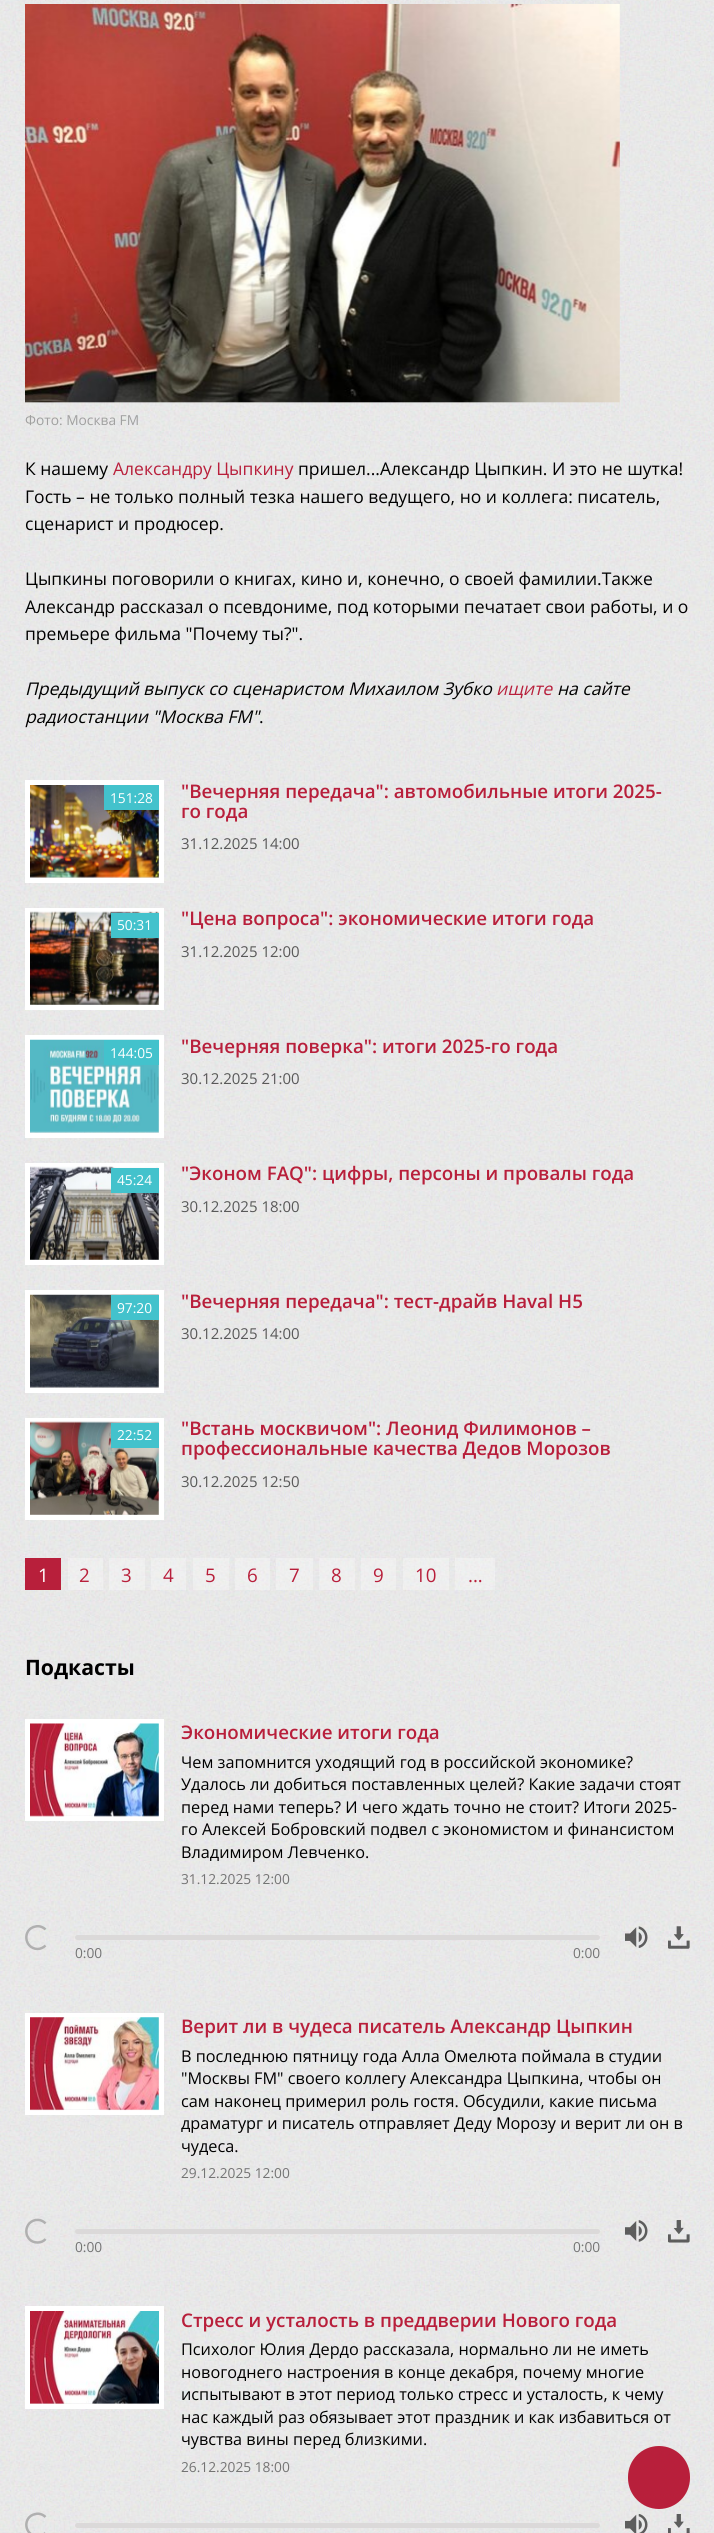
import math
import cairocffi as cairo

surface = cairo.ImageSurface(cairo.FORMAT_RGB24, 714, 2533)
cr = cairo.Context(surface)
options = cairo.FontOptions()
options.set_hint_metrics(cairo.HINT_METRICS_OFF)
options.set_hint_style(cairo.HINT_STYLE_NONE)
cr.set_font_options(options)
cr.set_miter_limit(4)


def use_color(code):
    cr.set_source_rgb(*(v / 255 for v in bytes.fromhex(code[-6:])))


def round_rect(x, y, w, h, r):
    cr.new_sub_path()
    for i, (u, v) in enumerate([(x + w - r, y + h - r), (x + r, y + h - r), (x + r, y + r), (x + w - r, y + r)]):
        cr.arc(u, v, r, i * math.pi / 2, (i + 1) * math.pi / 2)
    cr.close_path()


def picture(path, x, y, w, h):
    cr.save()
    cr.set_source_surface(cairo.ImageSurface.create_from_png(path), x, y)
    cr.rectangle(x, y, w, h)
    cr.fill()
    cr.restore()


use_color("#ffffff")
cr.paint()
picture("img1.png", 0, 0, 714, 2533)
picture("img2.png", 25, 4, 595, 399)
cr.select_font_face("Open Sans")
cr.set_font_size(13.75)
use_color("#a0a0a0")
cr.move_to(25, 425)
cr.show_text("Фото: Москва FM")
cr.set_font_size(17.5)
use_color("#000000")
cr.move_to(25, 475)
cr.show_text("К нашему")
use_color("#b81f3b")
cr.move_to(113, 475)
cr.show_text("Александру Цыпкину")
use_color("#000000")
cr.move_to(298, 475)
cr.show_text("пришел...Александр Цыпкин. И это не шутка!")
cr.move_to(25, 503)
cr.show_text("Гость – не только полный тезка нашего ведущего, но и коллега: писатель,")
cr.move_to(25, 530)
cr.show_text("сценарист и продюсер.")
cr.move_to(25, 585)
cr.show_text("Цыпкины поговорили о книгах, кино и, конечно, о своей фамилии.Также")
cr.move_to(25, 613)
cr.show_text("Александр рассказал о псевдониме, под которыми печатает свои работы, и о")
cr.move_to(25, 640)
cr.show_text("премьере фильма \"Почему ты?\".")
cr.select_font_face("Open Sans", cairo.FONT_SLANT_ITALIC)
cr.move_to(25, 695)
cr.show_text("Предыдущий выпуск со сценаристом Михаилом Зубко")
use_color("#b81f3b")
cr.move_to(496, 695)
cr.show_text("ищите")
use_color("#000000")
cr.move_to(557, 695)
cr.show_text("на сайте")
cr.move_to(25, 723)
cr.show_text("радиостанции \"Москва FM\"")
cr.select_font_face("Open Sans")
cr.move_to(259, 723)
cr.show_text(".")
cr.rectangle(27.5, 782.5, 134, 98)
use_color("#ffffff")
cr.set_line_width(5)
cr.stroke()
picture("img3.png", 30, 785, 129, 93)
use_color("#43c2cc")
cr.rectangle(104, 785, 55, 25)
cr.fill()
cr.set_font_size(13.75)
use_color("#ffffff")
cr.move_to(110, 803)
cr.show_text("151:28")
cr.select_font_face("Open Sans SemiBold")
cr.set_font_size(18.75)
use_color("#b81f3b")
cr.move_to(181, 798)
cr.show_text("\"Вечерняя передача\": автомобильные итоги 2025-")
cr.move_to(181, 818)
cr.show_text("го года")
cr.select_font_face("Open Sans")
cr.set_font_size(15)
use_color("#595959")
cr.move_to(181, 849)
cr.show_text("31.12.2025 14:00")
cr.rectangle(27.5, 910.5, 134, 97)
use_color("#ffffff")
cr.stroke()
picture("img4.png", 30, 911, 129, 94)
use_color("#43c2cc")
cr.rectangle(111, 913, 48, 25)
cr.fill()
cr.set_font_size(13.75)
use_color("#ffffff")
cr.move_to(117, 930)
cr.show_text("50:31")
cr.select_font_face("Open Sans SemiBold")
cr.set_font_size(18.75)
use_color("#b81f3b")
cr.move_to(181, 925)
cr.show_text("\"Цена вопроса\": экономические итоги года")
cr.select_font_face("Open Sans")
cr.set_font_size(15)
use_color("#595959")
cr.move_to(181, 957)
cr.show_text("31.12.2025 12:00")
cr.rectangle(27.5, 1037.5, 134, 98)
use_color("#ffffff")
cr.stroke()
picture("img5.png", 30, 1039, 129, 94)
use_color("#43c2cc")
cr.rectangle(104, 1040, 55, 25)
cr.fill()
cr.set_font_size(13.75)
use_color("#ffffff")
cr.move_to(110, 1058)
cr.show_text("144:05")
cr.select_font_face("Open Sans SemiBold")
cr.set_font_size(18.75)
use_color("#b81f3b")
cr.move_to(181, 1053)
cr.show_text("\"Вечерняя поверка\": итоги 2025-го года")
cr.select_font_face("Open Sans")
cr.set_font_size(15)
use_color("#595959")
cr.move_to(181, 1084)
cr.show_text("30.12.2025 21:00")
cr.rectangle(27.5, 1165.5, 134, 97)
use_color("#ffffff")
cr.stroke()
picture("img6.png", 30, 1166, 129, 94)
use_color("#43c2cc")
cr.rectangle(111, 1168, 48, 25)
cr.fill()
cr.set_font_size(13.75)
use_color("#ffffff")
cr.move_to(117, 1185)
cr.show_text("45:24")
cr.select_font_face("Open Sans SemiBold")
cr.set_font_size(18.75)
use_color("#b81f3b")
cr.move_to(181, 1180)
cr.show_text("\"Эконом FAQ\": цифры, персоны и провалы года")
cr.select_font_face("Open Sans")
cr.set_font_size(15)
use_color("#595959")
cr.move_to(181, 1212)
cr.show_text("30.12.2025 18:00")
cr.rectangle(27.5, 1292.5, 134, 98)
use_color("#ffffff")
cr.stroke()
picture("img7.png", 30, 1294, 129, 94)
use_color("#43c2cc")
cr.rectangle(111, 1295, 48, 25)
cr.fill()
cr.set_font_size(13.75)
use_color("#ffffff")
cr.move_to(117, 1313)
cr.show_text("97:20")
cr.select_font_face("Open Sans SemiBold")
cr.set_font_size(18.75)
use_color("#b81f3b")
cr.move_to(181, 1308)
cr.show_text("\"Вечерняя передача\": тест-драйв Haval H5")
cr.select_font_face("Open Sans")
cr.set_font_size(15)
use_color("#595959")
cr.move_to(181, 1339)
cr.show_text("30.12.2025 14:00")
cr.rectangle(27.5, 1420.5, 134, 97)
use_color("#ffffff")
cr.stroke()
picture("img8.png", 30, 1421, 129, 94)
use_color("#43c2cc")
cr.rectangle(111, 1423, 48, 25)
cr.fill()
cr.set_font_size(13.75)
use_color("#ffffff")
cr.move_to(117, 1440)
cr.show_text("22:52")
cr.select_font_face("Open Sans SemiBold")
cr.set_font_size(18.75)
use_color("#b81f3b")
cr.move_to(181, 1435)
cr.show_text("\"Встань москвичом\": Леонид Филимонов –")
cr.move_to(181, 1455)
cr.show_text("профессиональные качества Дедов Морозов")
cr.select_font_face("Open Sans")
cr.set_font_size(15)
use_color("#595959")
cr.move_to(181, 1487)
cr.show_text("30.12.2025 12:50")
use_color("#b81f3b")
cr.rectangle(25, 1558, 36, 32)
cr.fill()
cr.set_font_size(18.75)
use_color("#ffffff")
cr.move_to(38, 1582)
cr.show_text("1")
cr.set_source_rgba(1, 1, 1, 0.3)
cr.rectangle(68, 1558, 35, 32)
cr.fill()
use_color("#b81f3b")
cr.move_to(79, 1582)
cr.show_text("2")
cr.set_source_rgba(1, 1, 1, 0.3)
cr.rectangle(109, 1558, 36, 32)
cr.fill()
use_color("#b81f3b")
cr.move_to(121, 1582)
cr.show_text("3")
cr.set_source_rgba(1, 1, 1, 0.3)
cr.rectangle(151, 1558, 35, 32)
cr.fill()
use_color("#b81f3b")
cr.move_to(163, 1582)
cr.show_text("4")
cr.set_source_rgba(1, 1, 1, 0.3)
cr.rectangle(193, 1558, 36, 32)
cr.fill()
use_color("#b81f3b")
cr.move_to(205, 1582)
cr.show_text("5")
cr.set_source_rgba(1, 1, 1, 0.3)
cr.rectangle(235, 1558, 35, 32)
cr.fill()
use_color("#b81f3b")
cr.move_to(247, 1582)
cr.show_text("6")
cr.set_source_rgba(1, 1, 1, 0.3)
cr.rectangle(276, 1558, 37, 32)
cr.fill()
use_color("#b81f3b")
cr.move_to(289, 1582)
cr.show_text("7")
cr.set_source_rgba(1, 1, 1, 0.3)
cr.rectangle(319, 1558, 36, 32)
cr.fill()
use_color("#b81f3b")
cr.move_to(331, 1582)
cr.show_text("8")
cr.set_source_rgba(1, 1, 1, 0.3)
cr.rectangle(361, 1558, 35, 32)
cr.fill()
use_color("#b81f3b")
cr.move_to(373, 1582)
cr.show_text("9")
cr.set_source_rgba(1, 1, 1, 0.3)
cr.rectangle(403, 1558, 46, 32)
cr.fill()
use_color("#b81f3b")
cr.move_to(415, 1582)
cr.show_text("10")
cr.set_source_rgba(1, 1, 1, 0.3)
cr.rectangle(455, 1558, 40, 32)
cr.fill()
use_color("#b81f3b")
cr.move_to(468, 1582)
cr.show_text("...")
cr.select_font_face("Open Sans", cairo.FONT_SLANT_NORMAL, cairo.FONT_WEIGHT_BOLD)
cr.set_font_size(21.25)
use_color("#000000")
cr.move_to(25, 1675)
cr.show_text("Подкасты")
cr.rectangle(27.5, 1721.5, 134, 97)
use_color("#ffffff")
cr.stroke()
picture("img9.png", 30, 1723, 129, 94)
cr.select_font_face("Open Sans SemiBold")
cr.set_font_size(18.75)
use_color("#b81f3b")
cr.move_to(181, 1739)
cr.show_text("Экономические итоги года")
cr.select_font_face("Open Sans")
cr.set_font_size(16.25)
use_color("#000000")
cr.move_to(181, 1768)
cr.show_text("Чем запомнится уходящий год в российской экономике?")
cr.move_to(181, 1790)
cr.show_text("Удалось ли добиться поставленных целей? Какие задачи стоят")
cr.move_to(181, 1813)
cr.show_text("перед нами теперь? И чего ждать точно не стоит? Итоги 2025-")
cr.move_to(181, 1835)
cr.show_text("го Алексей Бобровский подвел с экономистом и финансистом")
cr.move_to(181, 1858)
cr.show_text("Владимиром Левченко.")
cr.set_font_size(13.75)
use_color("#747474")
cr.move_to(181, 1884)
cr.show_text("31.12.2025 12:00")
cr.new_path()
cr.move_to(45.5, 1945.5)
cr.curve_to(43.5, 1947.5, 40.5, 1949, 37.5, 1949)
cr.curve_to(24, 1948.5, 22, 1929, 35.5, 1926.5)
cr.curve_to(39, 1925.5, 43, 1927, 45.5, 1929.5)
use_color("#b0b0b0")
cr.set_line_width(2.5)
cr.stroke()
picture("img10.png", 625, 1926, 23, 22)
picture("img11.png", 668, 1926, 22, 23)
use_color("#dbd9d9")
round_rect(75, 1935, 525, 5, 2.5)
cr.fill()
use_color("#747474")
cr.move_to(75, 1958)
cr.show_text("0:00")
cr.move_to(573, 1958)
cr.show_text("0:00")
cr.rectangle(27.5, 2015.5, 134, 97)
use_color("#ffffff")
cr.set_line_width(5)
cr.stroke()
picture("img12.png", 30, 2017, 129, 94)
cr.select_font_face("Open Sans SemiBold")
cr.set_font_size(18.75)
use_color("#b81f3b")
cr.move_to(181, 2033)
cr.show_text("Верит ли в чудеса писатель Александр Цыпкин")
cr.select_font_face("Open Sans")
cr.set_font_size(16.25)
use_color("#000000")
cr.move_to(181, 2062)
cr.show_text("В последнюю пятницу года Алла Омелюта поймала в студии")
cr.move_to(181, 2084)
cr.show_text("\"Москвы FM\" своего коллегу Александра Цыпкина, чтобы он")
cr.move_to(181, 2107)
cr.show_text("сам наконец примерил роль гостя. Обсудили, какие письма")
cr.move_to(181, 2129)
cr.show_text("драматург и писатель отправляет Деду Морозу и верит ли он в")
cr.move_to(181, 2152)
cr.show_text("чудеса.")
cr.set_font_size(13.75)
use_color("#747474")
cr.move_to(181, 2178)
cr.show_text("29.12.2025 12:00")
cr.new_path()
cr.move_to(45.5, 2239)
cr.curve_to(43.5, 2241.5, 40.5, 2242.5, 37.5, 2242.5)
cr.curve_to(24, 2242.5, 22, 2223, 35.5, 2220)
cr.curve_to(39, 2219.5, 43, 2220.5, 45.5, 2223.5)
use_color("#b0b0b0")
cr.set_line_width(2.5)
cr.stroke()
picture("img13.png", 625, 2220, 23, 22)
picture("img14.png", 668, 2220, 22, 23)
use_color("#dbd9d9")
round_rect(75, 2229, 525, 5, 2.5)
cr.fill()
use_color("#747474")
cr.move_to(75, 2252)
cr.show_text("0:00")
cr.move_to(573, 2252)
cr.show_text("0:00")
cr.rectangle(27.5, 2308.5, 134, 98)
use_color("#ffffff")
cr.set_line_width(5)
cr.stroke()
picture("img15.png", 30, 2311, 129, 93)
cr.select_font_face("Open Sans SemiBold")
cr.set_font_size(18.75)
use_color("#b81f3b")
cr.move_to(181, 2327)
cr.show_text("Стресс и усталость в преддверии Нового года")
cr.select_font_face("Open Sans")
cr.set_font_size(16.25)
use_color("#000000")
cr.move_to(181, 2355)
cr.show_text("Психолог Юлия Дердо рассказала, нормально ли не иметь")
cr.move_to(181, 2378)
cr.show_text("новогоднего настроения в конце декабря, почему многие")
cr.move_to(181, 2400)
cr.show_text("испытывают в этот период только стресс и усталость, к чему")
cr.move_to(181, 2423)
cr.show_text("нас каждый раз обязывает этот праздник и как избавиться от")
cr.move_to(181, 2445)
cr.show_text("чувства вины перед близкими.")
cr.set_font_size(13.75)
use_color("#747474")
cr.move_to(181, 2472)
cr.show_text("26.12.2025 18:00")
cr.new_path()
cr.move_to(45.5, 2533)
cr.curve_to(43.5, 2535, 40.5, 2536, 37.5, 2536)
cr.curve_to(24, 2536, 22, 2516.5, 35.5, 2514)
cr.curve_to(39, 2513, 43, 2514.5, 45.5, 2517)
use_color("#b0b0b0")
cr.set_line_width(2.5)
cr.stroke()
use_color("#dbd9d9")
round_rect(75, 2523, 525, 5, 2.5)
cr.fill()
picture("img16.png", 625, 2514, 23, 19)
picture("img17.png", 668, 2514, 22, 19)
use_color("#b81f3b")
round_rect(628, 2446, 62, 63, 31)
cr.fill()
surface.write_to_png("result.png")
